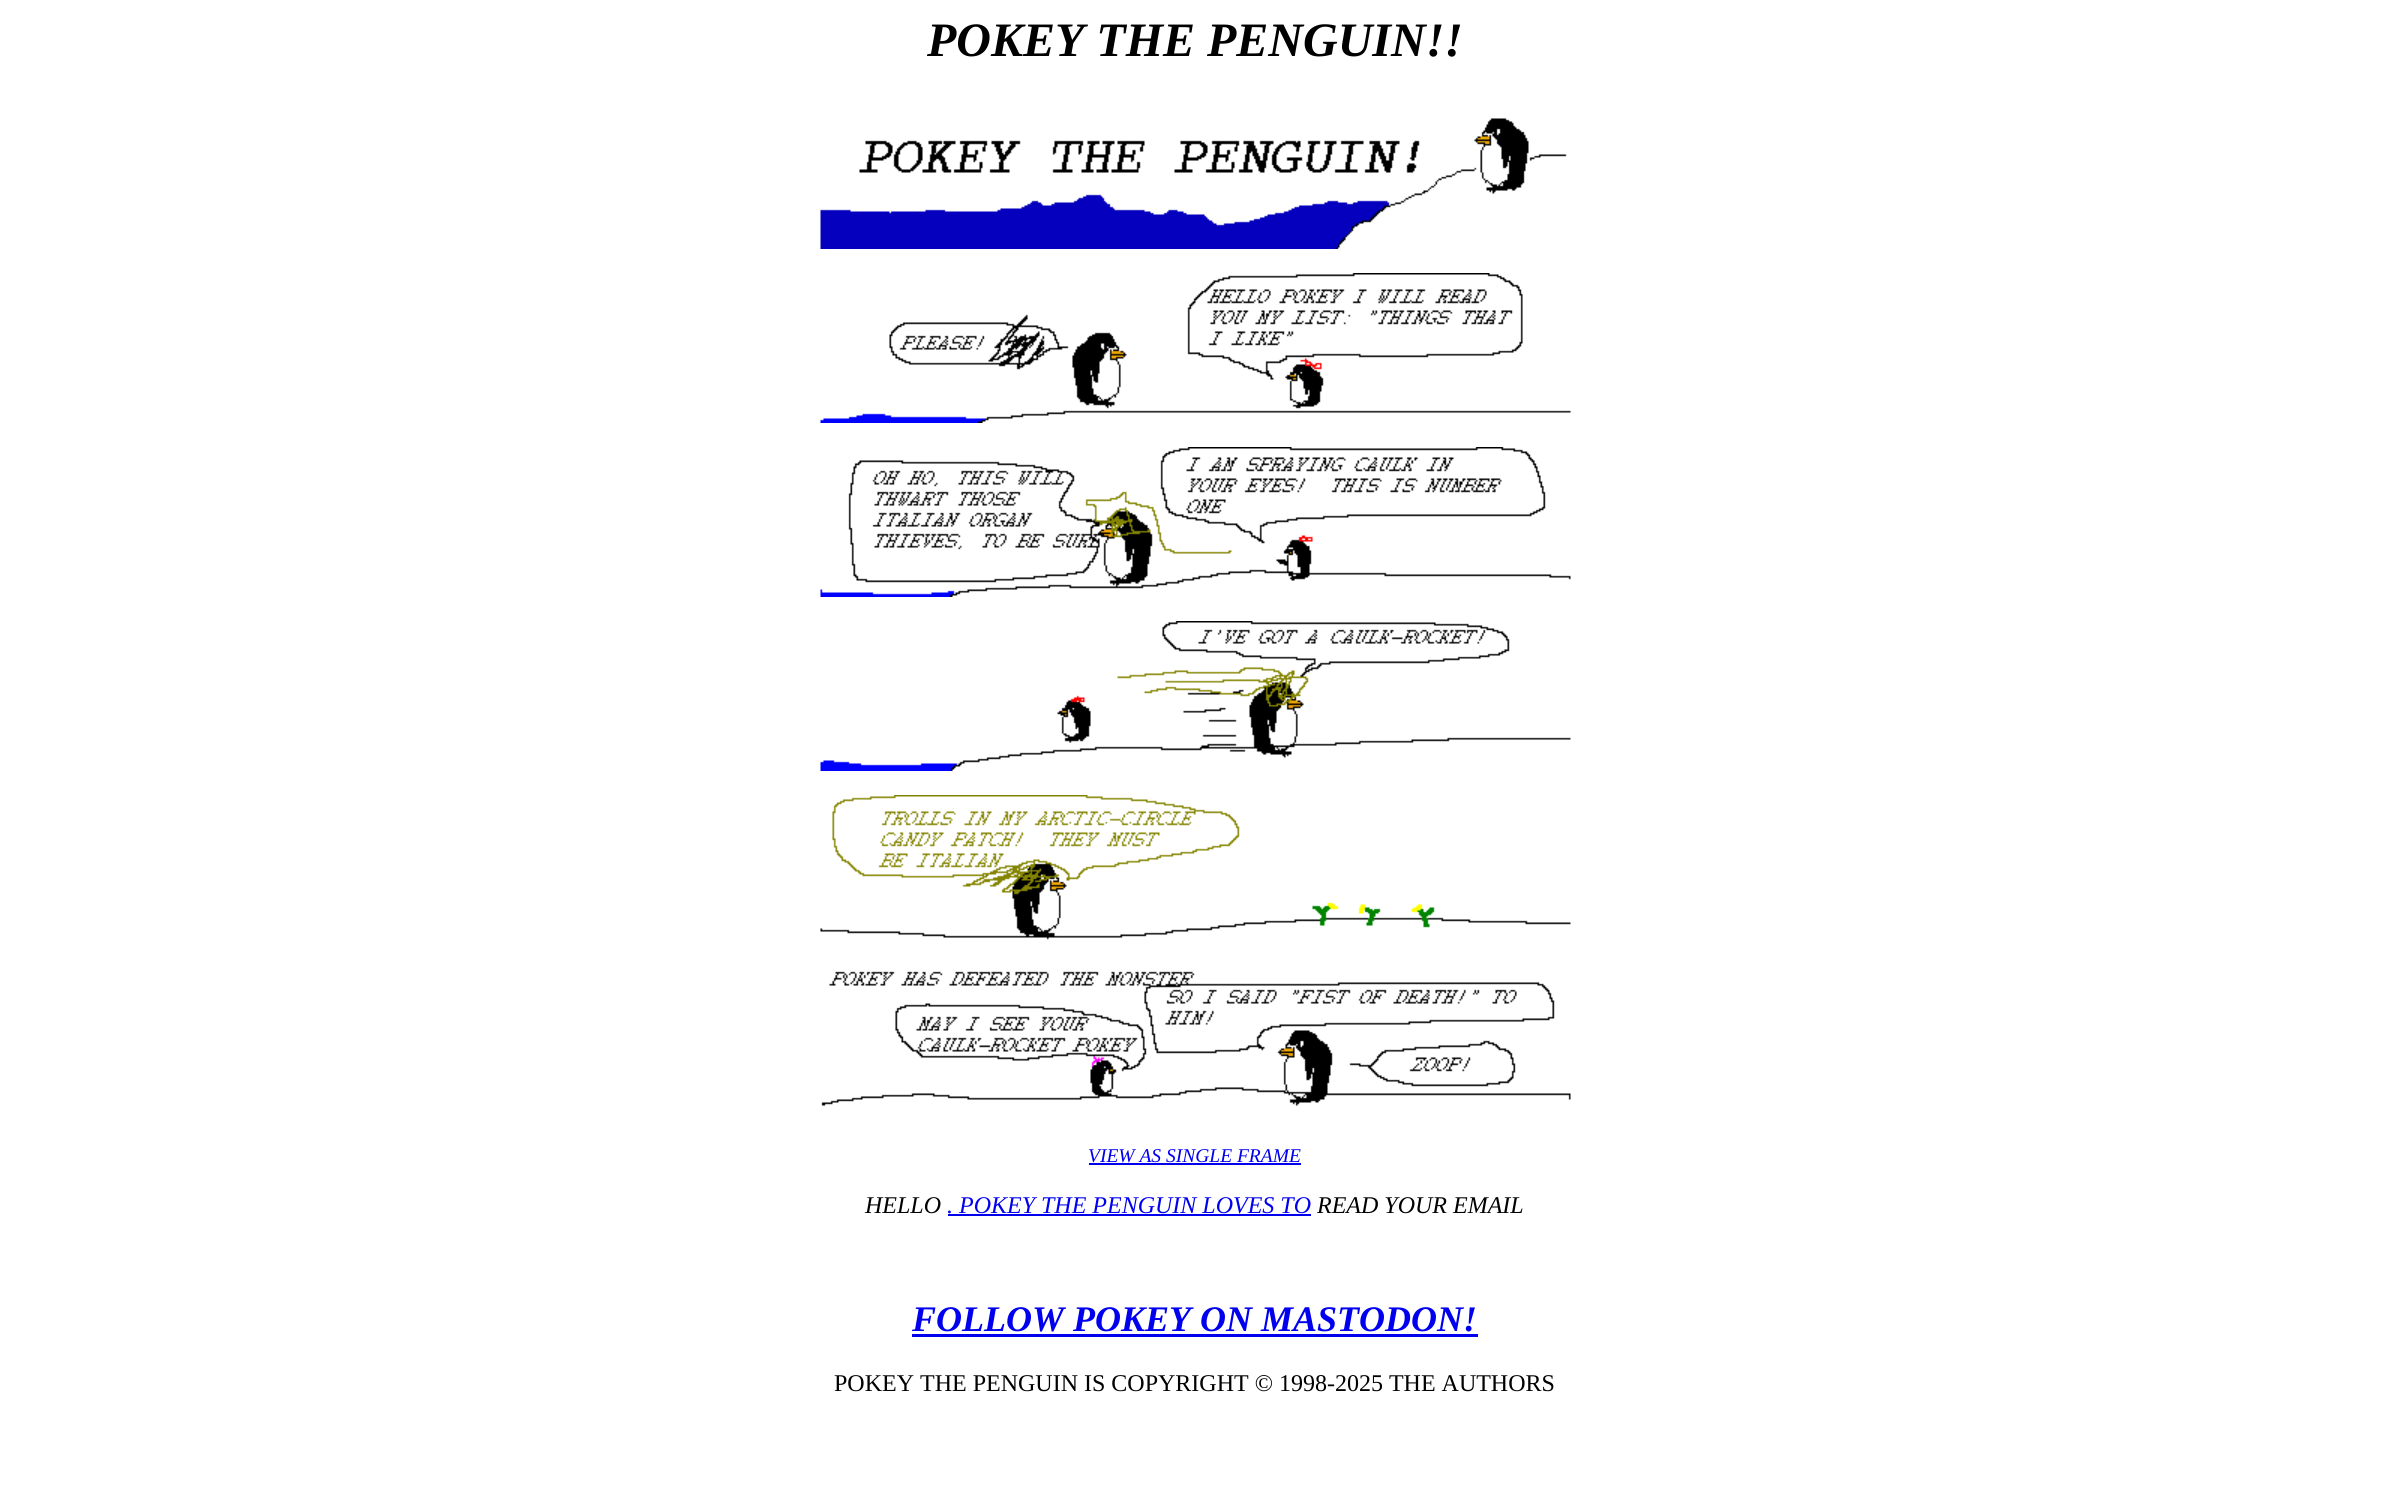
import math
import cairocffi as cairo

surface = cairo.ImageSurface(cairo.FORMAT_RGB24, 2389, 1500)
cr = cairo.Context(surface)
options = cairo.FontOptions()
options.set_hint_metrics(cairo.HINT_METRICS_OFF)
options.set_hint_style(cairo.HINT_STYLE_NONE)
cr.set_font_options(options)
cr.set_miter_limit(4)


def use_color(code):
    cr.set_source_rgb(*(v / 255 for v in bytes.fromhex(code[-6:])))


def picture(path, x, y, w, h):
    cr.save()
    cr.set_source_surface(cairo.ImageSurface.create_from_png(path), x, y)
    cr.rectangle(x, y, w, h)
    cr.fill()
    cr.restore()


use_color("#ffffff")
cr.paint()
cr.select_font_face("Liberation Serif", cairo.FONT_SLANT_ITALIC, cairo.FONT_WEIGHT_BOLD)
cr.set_font_size(48)
use_color("#000000")
cr.move_to(927, 56)
cr.show_text("POKEY THE PENGUIN!!")
picture("img1.png", 820, 118, 747, 131)
picture("img2.png", 820, 273, 751, 150)
picture("img3.png", 820, 447, 751, 150)
picture("img4.png", 820, 621, 751, 150)
picture("img5.png", 820, 795, 751, 145)
picture("img6.png", 821, 971, 750, 135)
cr.select_font_face("Liberation Serif", cairo.FONT_SLANT_ITALIC)
cr.set_font_size(19.5)
use_color("#0000ee")
cr.move_to(1088, 1162)
cr.show_text("VIEW AS SINGLE FRAME")
cr.rectangle(1089, 1163, 212, 2)
cr.fill()
cr.set_font_size(24)
use_color("#000000")
cr.move_to(865, 1213)
cr.show_text("HELLO")
use_color("#0000ee")
cr.move_to(947, 1213)
cr.show_text(". POKEY THE PENGUIN LOVES TO")
cr.rectangle(948, 1214, 363, 2)
cr.fill()
use_color("#000000")
cr.move_to(1317, 1213)
cr.show_text("READ YOUR EMAIL")
cr.select_font_face("Liberation Serif", cairo.FONT_SLANT_ITALIC, cairo.FONT_WEIGHT_BOLD)
cr.set_font_size(36)
use_color("#0000ee")
cr.move_to(912, 1331)
cr.show_text("FOLLOW POKEY ON MASTODON!")
cr.rectangle(912, 1334, 566, 3)
cr.fill()
cr.select_font_face("Liberation Serif")
cr.set_font_size(24)
use_color("#000000")
cr.move_to(834, 1391)
cr.show_text("POKEY THE PENGUIN IS COPYRIGHT © 1998-2025 THE AUTHORS")
surface.write_to_png("result.png")
